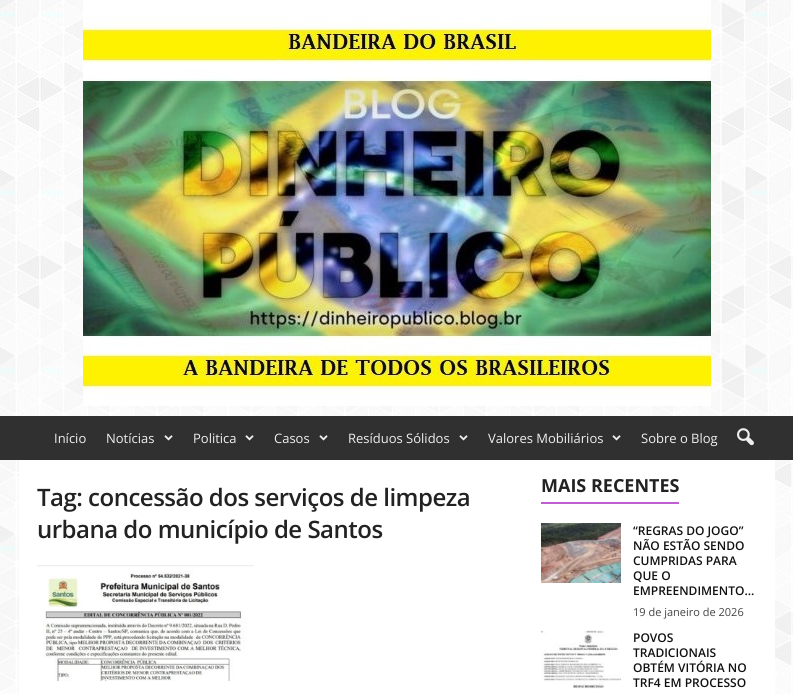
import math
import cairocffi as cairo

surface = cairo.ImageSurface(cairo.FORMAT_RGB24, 793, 694)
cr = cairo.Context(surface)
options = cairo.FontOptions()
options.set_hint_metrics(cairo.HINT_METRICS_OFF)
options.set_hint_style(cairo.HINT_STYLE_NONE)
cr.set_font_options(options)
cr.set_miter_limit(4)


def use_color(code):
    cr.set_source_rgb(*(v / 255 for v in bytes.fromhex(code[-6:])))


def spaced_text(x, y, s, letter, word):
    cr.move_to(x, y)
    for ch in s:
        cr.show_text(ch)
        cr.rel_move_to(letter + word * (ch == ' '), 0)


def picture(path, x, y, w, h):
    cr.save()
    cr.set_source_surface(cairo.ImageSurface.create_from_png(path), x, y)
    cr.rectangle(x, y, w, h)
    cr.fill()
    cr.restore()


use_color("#ffffff")
cr.paint()
picture("img1.png", 0, 0, 793, 694)
picture("img2.png", 83, 0, 628, 406)
use_color("#303030")
cr.rectangle(0, 416, 793, 44)
cr.fill()
cr.select_font_face("Open Sans")
cr.set_font_size(13)
use_color("#efefef")
cr.move_to(54, 443)
cr.show_text("Início")
cr.move_to(106, 443)
cr.show_text("Notícias")
picture("img3.png", 164, 435, 9, 6)
cr.move_to(193, 443)
cr.show_text("Politica")
picture("img3.png", 245, 435, 9, 6)
cr.move_to(274, 443)
cr.show_text("Casos")
picture("img3.png", 319, 435, 9, 6)
cr.move_to(348, 443)
cr.show_text("Resíduos Sólidos")
picture("img3.png", 459, 435, 9, 6)
cr.move_to(488, 443)
cr.show_text("Valores Mobiliários")
picture("img3.png", 612, 435, 9, 6)
cr.move_to(641, 443)
cr.show_text("Sobre o Blog")
picture("img4.png", 737, 428, 17, 18)
use_color("#ffffff")
cr.rectangle(19, 460, 756, 234)
cr.fill()
cr.select_font_face("Open Sans SemiBold")
cr.set_font_size(24)
use_color("#222222")
spaced_text(37, 506, "Tag: concessão dos serviços de limpeza", -0.5, 0)
spaced_text(37, 538, "urbana do município de Santos", -0.5, 0)
picture("img5.png", 37, 565, 217, 116)
cr.select_font_face("Open Sans", cairo.FONT_SLANT_NORMAL, cairo.FONT_WEIGHT_BOLD)
cr.set_font_size(18)
cr.move_to(541, 492)
cr.show_text("MAIS RECENTES")
use_color("#bd5ed1")
cr.rectangle(541, 502, 138, 2)
cr.fill()
picture("img6.png", 541, 523, 80, 60)
cr.select_font_face("Open Sans SemiBold")
cr.set_font_size(12)
use_color("#111111")
cr.move_to(633, 535)
cr.show_text("“REGRAS DO JOGO”")
cr.move_to(633, 550)
cr.show_text("NÃO ESTÃO SENDO")
cr.move_to(633, 565)
cr.show_text("CUMPRIDAS PARA")
cr.move_to(633, 580)
cr.show_text("QUE O")
cr.move_to(633, 595)
cr.show_text("EMPREENDIMENTO...")
cr.select_font_face("Open Sans")
cr.set_font_size(11)
use_color("#444444")
cr.move_to(633, 616)
cr.show_text("19 de janeiro de 2026")
picture("img7.png", 541, 630, 80, 59)
cr.select_font_face("Open Sans SemiBold")
cr.set_font_size(12)
use_color("#111111")
cr.move_to(633, 642)
cr.show_text("POVOS")
cr.move_to(633, 657)
cr.show_text("TRADICIONAIS")
cr.move_to(633, 672)
cr.show_text("OBTÉM VITÓRIA NO")
cr.move_to(633, 687)
cr.show_text("TRF4 EM PROCESSO")
picture("img8.png", 775, 670, 2, 6)
surface.write_to_png("result.png")
